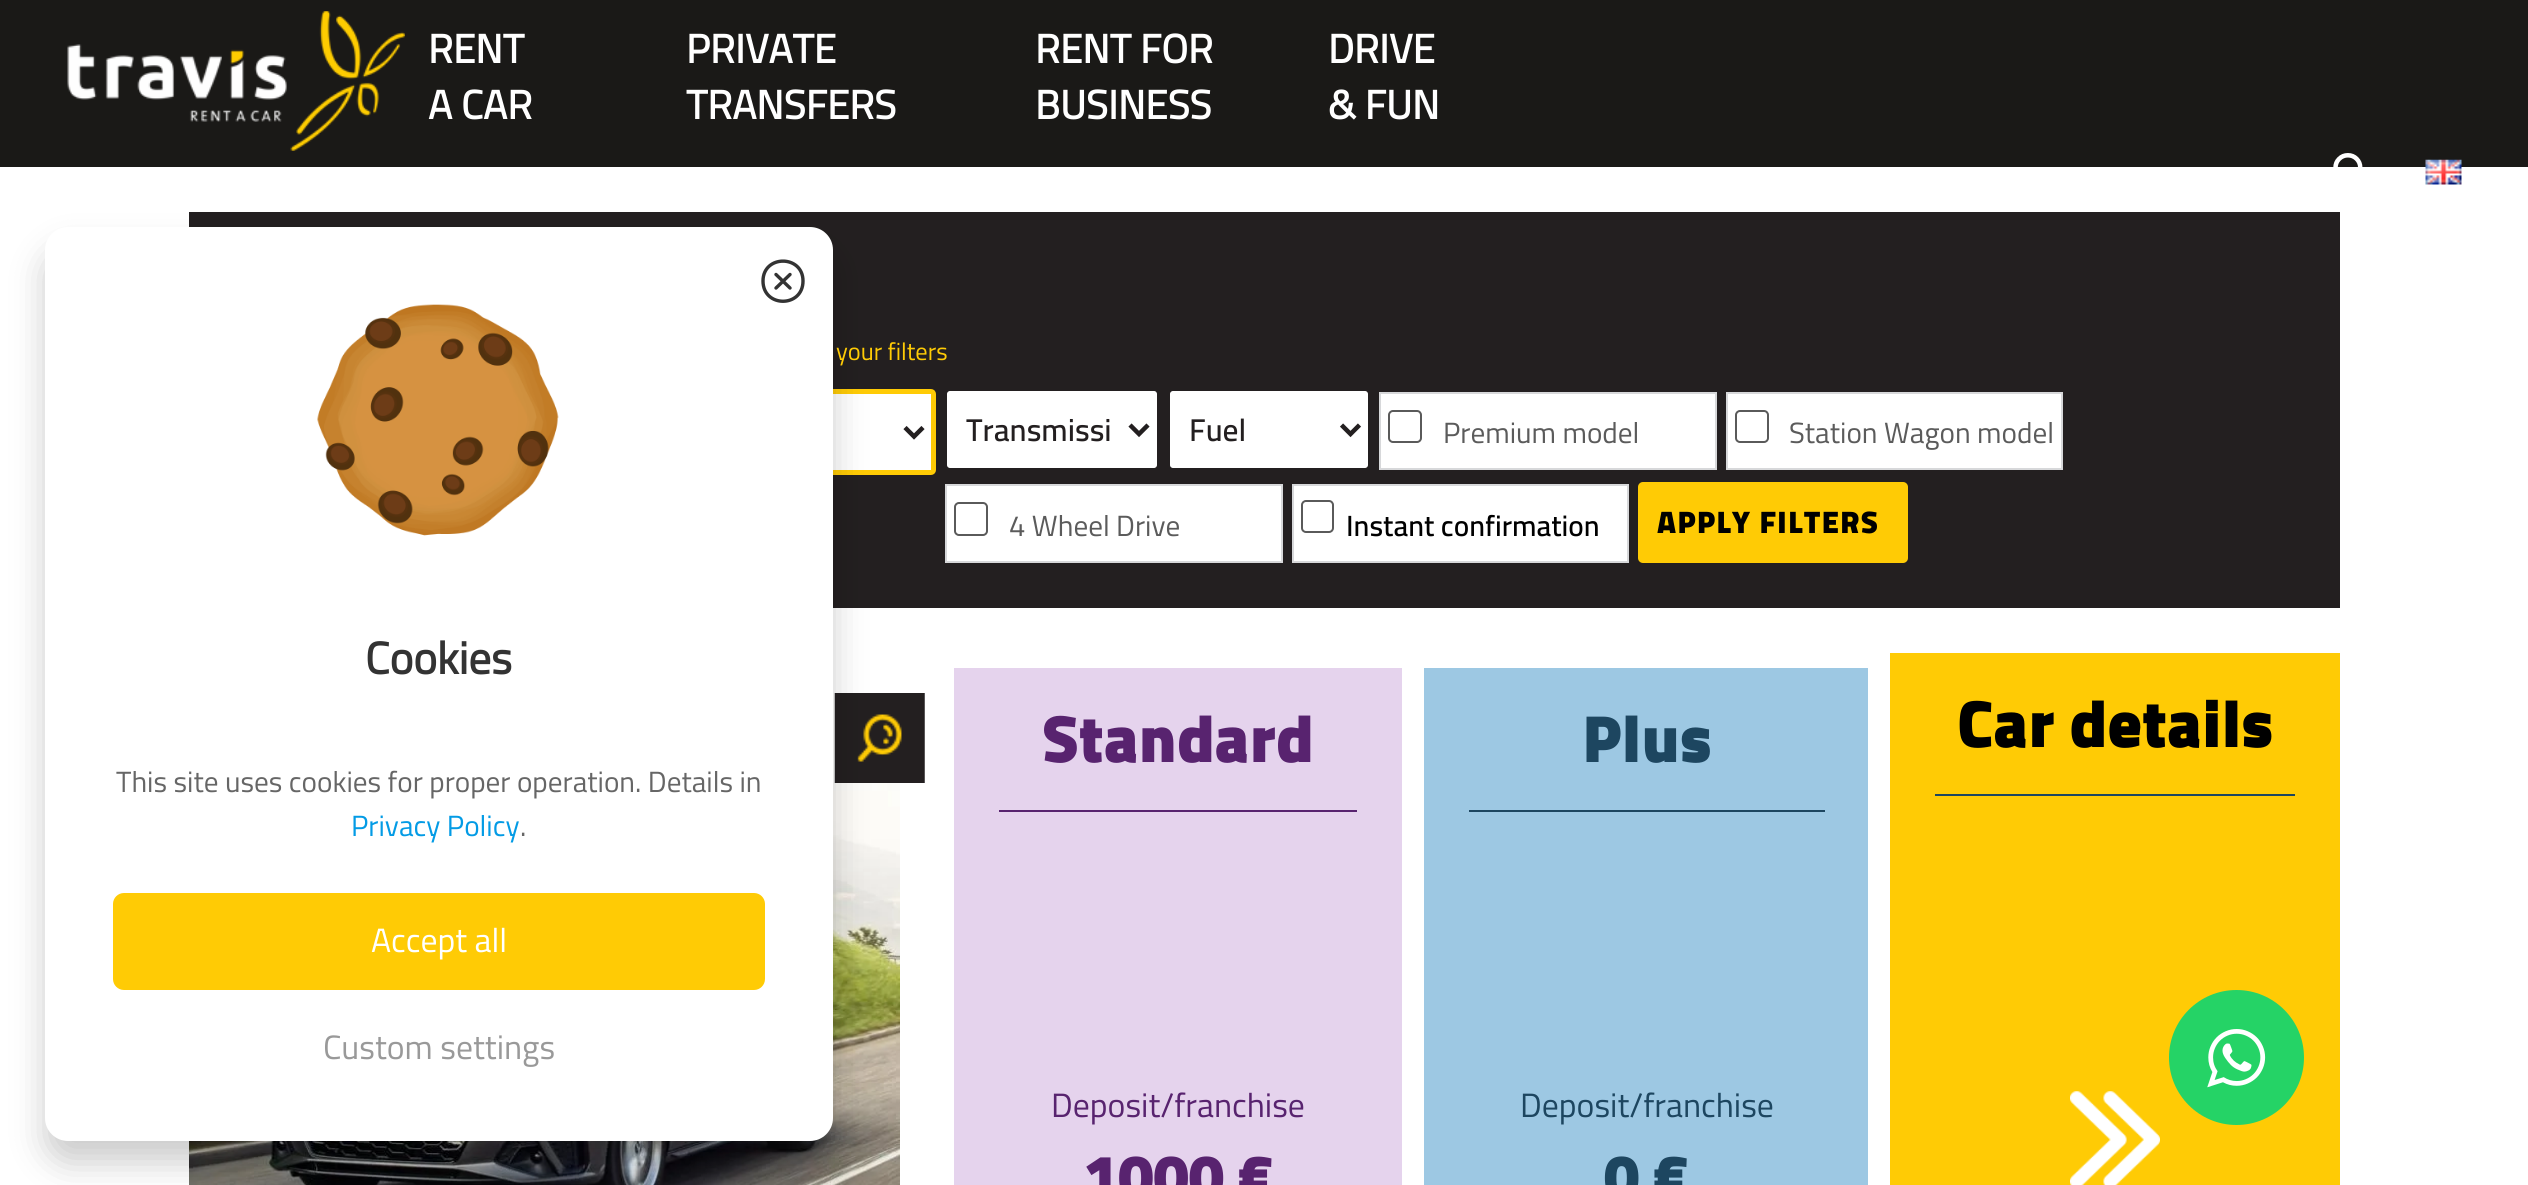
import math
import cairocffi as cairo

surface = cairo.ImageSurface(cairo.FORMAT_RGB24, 2528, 1185)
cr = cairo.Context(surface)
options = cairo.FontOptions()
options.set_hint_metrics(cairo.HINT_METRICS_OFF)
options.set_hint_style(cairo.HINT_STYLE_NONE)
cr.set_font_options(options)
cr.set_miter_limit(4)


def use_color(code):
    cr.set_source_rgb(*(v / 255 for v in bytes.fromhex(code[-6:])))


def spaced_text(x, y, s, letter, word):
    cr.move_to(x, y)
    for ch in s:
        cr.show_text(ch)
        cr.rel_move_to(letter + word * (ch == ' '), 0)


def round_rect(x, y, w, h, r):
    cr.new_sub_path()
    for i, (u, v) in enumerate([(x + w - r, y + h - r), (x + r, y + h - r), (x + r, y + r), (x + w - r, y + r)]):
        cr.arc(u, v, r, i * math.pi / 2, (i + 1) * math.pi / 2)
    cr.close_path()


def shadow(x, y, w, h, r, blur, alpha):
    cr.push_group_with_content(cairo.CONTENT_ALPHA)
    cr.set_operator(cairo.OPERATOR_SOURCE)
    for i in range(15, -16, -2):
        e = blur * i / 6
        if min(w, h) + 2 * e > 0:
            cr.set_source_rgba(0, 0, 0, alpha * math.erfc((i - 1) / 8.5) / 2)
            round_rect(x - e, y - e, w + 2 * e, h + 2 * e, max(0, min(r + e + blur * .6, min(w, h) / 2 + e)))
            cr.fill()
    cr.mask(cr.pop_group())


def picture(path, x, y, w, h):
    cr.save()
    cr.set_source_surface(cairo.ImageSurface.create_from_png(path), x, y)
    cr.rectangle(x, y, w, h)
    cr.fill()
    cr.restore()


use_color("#ffffff")
cr.paint()
use_color("#1a1917")
cr.rectangle(0, 0, 2528, 167)
cr.fill()
picture("img1.png", 67, 11, 338, 140)
cr.select_font_face("Cairo", cairo.FONT_SLANT_NORMAL, cairo.FONT_WEIGHT_BOLD)
cr.set_font_size(40.5)
use_color("#ffffff")
cr.move_to(428, 63)
cr.show_text("RENT")
cr.move_to(428, 119)
cr.show_text("A CAR")
cr.move_to(686, 63)
cr.show_text("PRIVATE")
cr.move_to(686, 119)
cr.show_text("TRANSFERS")
cr.move_to(1035, 63)
cr.show_text("RENT FOR")
cr.move_to(1035, 119)
cr.show_text("BUSINESS")
cr.move_to(1328, 63)
cr.show_text("DRIVE")
cr.move_to(1328, 119)
cr.show_text("& FUN")
picture("img2.png", 2333, 153, 30, 14)
picture("img3.png", 2425, 159, 37, 26)
use_color("#231f20")
cr.rectangle(189, 212, 2151, 396)
cr.fill()
use_color("#ffffff")
round_rect(713.5, 391.5, 220, 81, 2.5)
cr.fill_preserve()
use_color("#ffcb05")
cr.set_line_width(5)
cr.stroke()
picture("img5.png", 189, 693, 711, 492)
cr.set_source_rgba(1, 1, 1, 0.8)
cr.rectangle(833, 758, 2, 25)
cr.fill()
picture("img6.png", 834, 693, 91, 90)
use_color("#000000")
shadow(45, 250, 788, 913, 23, 17, 0.2)
use_color("#ffffff")
round_rect(45, 227, 788, 914, 23)
cr.fill()
cr.new_path()
cr.move_to(803, 281)
cr.curve_to(803, 254.5, 763, 254.5, 763, 281)
cr.curve_to(763, 308, 803, 308, 803, 281)
cr.close_path()
use_color("#333333")
cr.set_line_width(3.4)
cr.stroke()
cr.new_path()
cr.move_to(790, 288)
cr.line_to(776, 274.5)
cr.move_to(776, 288)
cr.line_to(790, 274.5)
cr.set_line_cap(cairo.LINE_CAP_ROUND)
cr.set_line_join(cairo.LINE_JOIN_ROUND)
cr.stroke()
picture("img4.png", 317, 304, 242, 232)
cr.set_font_size(45)
cr.move_to(365, 674)
cr.show_text("Cookies")
cr.select_font_face("Cairo")
cr.set_font_size(29.25)
use_color("#666666")
cr.move_to(116, 792)
cr.show_text("This site uses cookies for proper operation. Details in")
use_color("#039be5")
cr.move_to(351, 836)
cr.show_text("Privacy Policy")
use_color("#666666")
cr.move_to(520, 836)
cr.show_text(".")
use_color("#ffcb05")
round_rect(113, 893, 652, 97, 11)
cr.fill()
cr.set_font_size(33.75)
use_color("#ffffff")
cr.move_to(371, 952)
cr.show_text("Accept all")
use_color("#999999")
cr.move_to(323, 1059)
cr.show_text("Custom settings")
cr.set_font_size(24.5)
use_color("#ffcb05")
cr.move_to(836, 360)
cr.show_text("your filters")
cr.new_path()
cr.move_to(905, 427.5)
cr.line_to(914, 436.5)
cr.line_to(923, 427.5)
use_color("#231f20")
cr.set_line_width(4.5)
cr.set_line_cap(cairo.LINE_CAP_BUTT)
cr.set_line_join(cairo.LINE_JOIN_MITER)
cr.stroke()
use_color("#ffffff")
round_rect(946, 390, 212, 79, 4)
cr.fill_preserve()
use_color("#231f20")
cr.set_line_width(2)
cr.stroke()
cr.new_path()
cr.move_to(1130, 425)
cr.line_to(1139, 434)
cr.line_to(1148, 425)
cr.set_line_width(4.5)
cr.stroke()
cr.select_font_face("Cairo SemiBold")
cr.set_font_size(31.5)
cr.move_to(966, 441)
cr.show_text("Transmissi")
use_color("#ffffff")
round_rect(1169, 390, 200, 79, 4)
cr.fill_preserve()
use_color("#231f20")
cr.set_line_width(2)
cr.stroke()
cr.new_path()
cr.move_to(1341.5, 425)
cr.line_to(1350.5, 434)
cr.line_to(1359.5, 425)
cr.set_line_width(4.5)
cr.stroke()
cr.move_to(1189, 441)
cr.show_text("Fuel")
use_color("#ffffff")
cr.rectangle(1380, 393, 336, 76)
cr.fill_preserve()
use_color("#d7d8da")
cr.set_line_width(2)
cr.stroke()
round_rect(1389, 411, 32, 31, 4)
use_color("#5a5a5a")
cr.stroke()
cr.select_font_face("Cairo")
cr.set_font_size(29.25)
use_color("#5b5b5b")
cr.move_to(1443, 443)
cr.show_text("Premium model")
use_color("#ffffff")
cr.rectangle(1727, 393, 335, 76)
cr.fill_preserve()
use_color("#d7d8da")
cr.stroke()
round_rect(1736, 411, 32, 31, 4)
use_color("#5a5a5a")
cr.stroke()
use_color("#5b5b5b")
cr.move_to(1789, 443)
cr.show_text("Station Wagon model")
use_color("#ffffff")
cr.rectangle(946, 485, 336, 77)
cr.fill_preserve()
use_color("#d7d8da")
cr.stroke()
round_rect(955, 503, 32, 32, 4)
use_color("#5a5a5a")
cr.stroke()
use_color("#5b5b5b")
cr.move_to(1009, 536)
cr.show_text("4 Wheel Drive")
use_color("#ffffff")
cr.rectangle(1293, 485, 335, 77)
cr.fill_preserve()
use_color("#d7d8da")
cr.stroke()
round_rect(1302, 501, 31, 31, 4)
use_color("#5a5a5a")
cr.stroke()
cr.select_font_face("Cairo SemiBold")
use_color("#000000")
cr.move_to(1346, 536)
cr.show_text("Instant confirmation")
use_color("#ffcb05")
round_rect(1638, 482, 270, 81, 5)
cr.fill()
cr.select_font_face("Cairo Black")
cr.set_font_size(31.5)
use_color("#000000")
spaced_text(1657, 533, "APPLY FILTERS", 1.1, 0)
use_color("#e5d3ed")
cr.rectangle(954, 668, 448, 517)
cr.fill()
cr.set_font_size(67.5)
use_color("#58236f")
cr.move_to(1042, 762)
cr.show_text("Standard")
cr.rectangle(999, 810, 358, 2)
cr.fill()
cr.select_font_face("Cairo")
cr.set_font_size(33.75)
cr.move_to(1051, 1117)
cr.show_text("Deposit/franchise")
cr.select_font_face("Cairo Black")
cr.set_font_size(63)
cr.move_to(1083, 1199)
cr.show_text("1000 €")
use_color("#9dc8e3")
cr.rectangle(1424, 668, 444, 517)
cr.fill()
cr.set_font_size(67.5)
use_color("#1d4660")
cr.move_to(1582, 762)
cr.show_text("Plus")
cr.rectangle(1469, 810, 356, 2)
cr.fill()
cr.select_font_face("Cairo")
cr.set_font_size(33.75)
cr.move_to(1520, 1117)
cr.show_text("Deposit/franchise")
cr.select_font_face("Cairo Black")
cr.set_font_size(63)
cr.move_to(1604, 1199)
cr.show_text("0 €")
use_color("#ffcb05")
cr.rectangle(1890, 653, 450, 532)
cr.fill()
cr.set_font_size(67.5)
use_color("#000000")
cr.move_to(1957, 747)
cr.show_text("Car details")
use_color("#1d4660")
cr.rectangle(1935, 794, 360, 2)
cr.fill()
picture("img7.png", 2070, 1091, 90, 94)
use_color("#25d366")
cr.arc(2236.5, 1057.5, 67.5, 0, 2 * math.pi)
cr.fill()
picture("img8.png", 2207, 1029, 59, 59)
surface.write_to_png("result.png")
